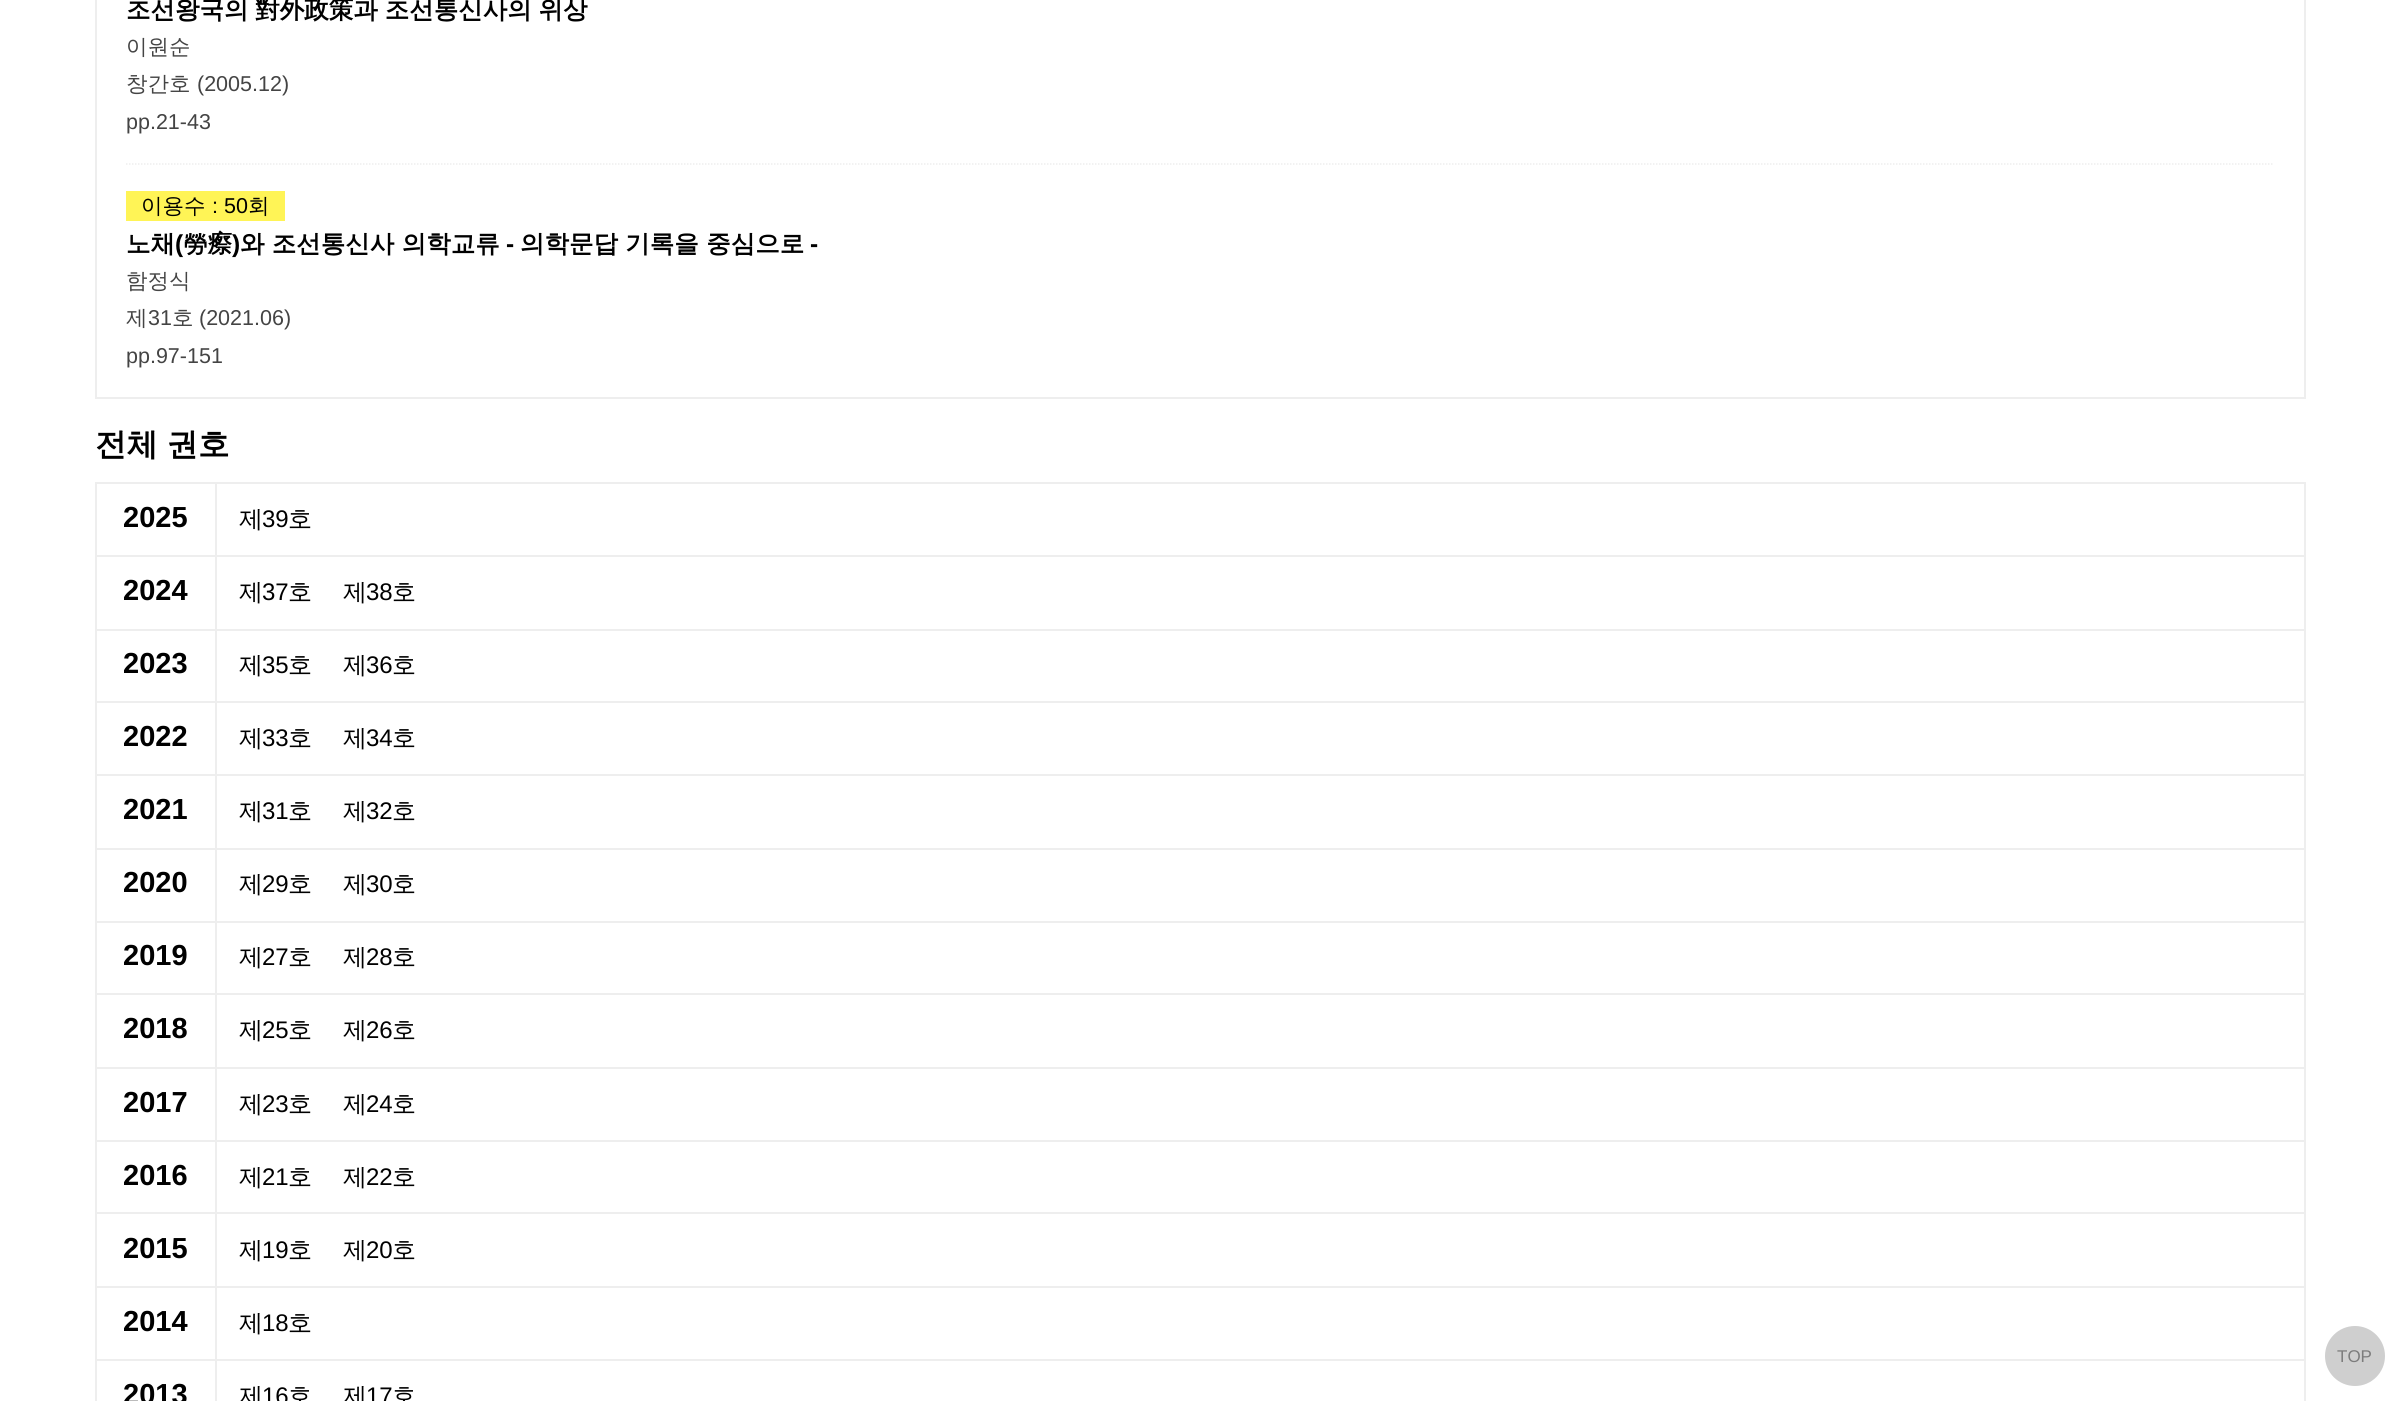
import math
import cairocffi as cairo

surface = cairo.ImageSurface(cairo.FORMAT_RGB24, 2399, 1401)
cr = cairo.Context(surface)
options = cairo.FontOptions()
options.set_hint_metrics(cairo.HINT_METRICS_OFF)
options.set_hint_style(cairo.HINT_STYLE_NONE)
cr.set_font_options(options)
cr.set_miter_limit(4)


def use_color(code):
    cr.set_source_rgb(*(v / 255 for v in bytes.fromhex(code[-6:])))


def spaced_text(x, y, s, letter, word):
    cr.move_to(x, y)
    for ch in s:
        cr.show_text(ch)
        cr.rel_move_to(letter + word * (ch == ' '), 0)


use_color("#ffffff")
cr.paint()
cr.rectangle(96, -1, 2209, 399)
use_color("#eeeeee")
cr.stroke()
cr.new_path()
cr.move_to(126, 164)
cr.line_to(2274, 164)
cr.set_line_width(1.5)
cr.set_dash([1.5, 1.5])
cr.stroke()
cr.select_font_face("WenQuanYi Zen Hei", cairo.FONT_SLANT_NORMAL, cairo.FONT_WEIGHT_BOLD)
cr.set_font_size(24.5)
use_color("#000000")
spaced_text(126, 18, "조선왕국의 對外政策과 조선통신사의 위상", 0, -0.5)
cr.select_font_face("WenQuanYi Zen Hei Medium")
cr.set_font_size(21.5)
use_color("#444444")
cr.move_to(126, 54)
cr.show_text("이원순")
cr.move_to(126, 91)
cr.show_text("창간호")
cr.select_font_face("Liberation Sans")
cr.move_to(197, 91)
cr.show_text("(2005.12)")
cr.move_to(126, 129)
cr.show_text("pp.21-43")
use_color("#fff456")
cr.rectangle(126, 191, 159, 30)
cr.fill()
cr.select_font_face("WenQuanYi Zen Hei Medium")
use_color("#000000")
cr.move_to(141, 213)
cr.show_text("이용수")
cr.select_font_face("Liberation Sans")
cr.move_to(212, 213)
cr.show_text(": 50")
cr.select_font_face("WenQuanYi Zen Hei Medium")
cr.move_to(248, 213)
cr.show_text("회")
cr.select_font_face("WenQuanYi Zen Hei", cairo.FONT_SLANT_NORMAL, cairo.FONT_WEIGHT_BOLD)
cr.set_font_size(24.5)
cr.move_to(126, 252)
cr.show_text("노채")
cr.select_font_face("Liberation Sans", cairo.FONT_SLANT_NORMAL, cairo.FONT_WEIGHT_BOLD)
cr.move_to(175, 252)
cr.show_text("(")
cr.select_font_face("WenQuanYi Zen Hei", cairo.FONT_SLANT_NORMAL, cairo.FONT_WEIGHT_BOLD)
cr.move_to(183, 252)
cr.show_text("勞瘵")
cr.select_font_face("Liberation Sans", cairo.FONT_SLANT_NORMAL, cairo.FONT_WEIGHT_BOLD)
cr.move_to(232, 252)
cr.show_text(")")
cr.select_font_face("WenQuanYi Zen Hei", cairo.FONT_SLANT_NORMAL, cairo.FONT_WEIGHT_BOLD)
cr.move_to(240, 252)
cr.show_text("와 조선통신사 의학교류")
cr.select_font_face("Liberation Sans", cairo.FONT_SLANT_NORMAL, cairo.FONT_WEIGHT_BOLD)
cr.move_to(506, 252)
cr.show_text("-")
cr.select_font_face("WenQuanYi Zen Hei", cairo.FONT_SLANT_NORMAL, cairo.FONT_WEIGHT_BOLD)
cr.move_to(520, 252)
cr.show_text("의학문답 기록을 중심으로")
cr.select_font_face("Liberation Sans", cairo.FONT_SLANT_NORMAL, cairo.FONT_WEIGHT_BOLD)
cr.move_to(810, 252)
cr.show_text("-")
cr.select_font_face("WenQuanYi Zen Hei Medium")
cr.set_font_size(21.5)
use_color("#444444")
cr.move_to(126, 288)
cr.show_text("함정식")
cr.move_to(126, 325)
cr.show_text("제")
cr.select_font_face("Liberation Sans")
cr.move_to(148, 325)
cr.show_text("31")
cr.select_font_face("WenQuanYi Zen Hei Medium")
cr.move_to(172, 325)
cr.show_text("호")
cr.select_font_face("Liberation Sans")
cr.move_to(199, 325)
cr.show_text("(2021.06)")
cr.move_to(126, 363)
cr.show_text("pp.97-151")
cr.select_font_face("WenQuanYi Zen Hei", cairo.FONT_SLANT_NORMAL, cairo.FONT_WEIGHT_BOLD)
cr.set_font_size(31.5)
use_color("#000000")
spaced_text(95, 455, "전체 권호", 0, -1)
use_color("#eeeeee")
cr.rectangle(215, 482, 2091, 2)
cr.fill()
cr.rectangle(215, 555, 2091, 2)
cr.fill()
cr.rectangle(215, 629, 2091, 2)
cr.fill()
cr.rectangle(215, 701, 2091, 2)
cr.fill()
cr.rectangle(215, 774, 2091, 2)
cr.fill()
cr.rectangle(215, 848, 2091, 2)
cr.fill()
cr.rectangle(215, 921, 2091, 2)
cr.fill()
cr.rectangle(215, 993, 2091, 2)
cr.fill()
cr.rectangle(215, 1067, 2091, 2)
cr.fill()
cr.rectangle(215, 1140, 2091, 2)
cr.fill()
cr.rectangle(215, 1212, 2091, 2)
cr.fill()
cr.rectangle(215, 1286, 2091, 2)
cr.fill()
cr.rectangle(215, 1359, 2091, 2)
cr.fill()
cr.rectangle(215, 1359, 2, 42)
cr.fill()
cr.rectangle(95, 1359, 121, 2)
cr.fill()
cr.rectangle(215, 1286, 2, 75)
cr.fill()
cr.rectangle(95, 1286, 121, 2)
cr.fill()
cr.rectangle(215, 1212, 2, 75)
cr.fill()
cr.rectangle(95, 1212, 121, 2)
cr.fill()
cr.rectangle(215, 1140, 2, 74)
cr.fill()
cr.rectangle(95, 1140, 121, 2)
cr.fill()
cr.rectangle(215, 1067, 2, 75)
cr.fill()
cr.rectangle(95, 1067, 121, 2)
cr.fill()
cr.rectangle(215, 993, 2, 75)
cr.fill()
cr.rectangle(95, 993, 121, 2)
cr.fill()
cr.rectangle(215, 921, 2, 74)
cr.fill()
cr.rectangle(95, 921, 121, 2)
cr.fill()
cr.rectangle(215, 848, 2, 75)
cr.fill()
cr.rectangle(95, 848, 121, 2)
cr.fill()
cr.rectangle(215, 774, 2, 75)
cr.fill()
cr.rectangle(95, 774, 121, 2)
cr.fill()
cr.rectangle(215, 701, 2, 75)
cr.fill()
cr.rectangle(95, 701, 121, 2)
cr.fill()
cr.rectangle(215, 629, 2, 73)
cr.fill()
cr.rectangle(95, 629, 121, 2)
cr.fill()
cr.rectangle(215, 555, 2, 75)
cr.fill()
cr.rectangle(95, 555, 121, 2)
cr.fill()
cr.rectangle(215, 482, 2, 75)
cr.fill()
cr.rectangle(95, 482, 121, 2)
cr.fill()
cr.rectangle(95, 1359, 2, 42)
cr.fill()
cr.rectangle(95, 1286, 2, 75)
cr.fill()
cr.rectangle(95, 1212, 2, 75)
cr.fill()
cr.rectangle(95, 1140, 2, 74)
cr.fill()
cr.rectangle(95, 1067, 2, 75)
cr.fill()
cr.rectangle(95, 993, 2, 75)
cr.fill()
cr.rectangle(95, 921, 2, 74)
cr.fill()
cr.rectangle(95, 848, 2, 75)
cr.fill()
cr.rectangle(95, 774, 2, 75)
cr.fill()
cr.rectangle(95, 701, 2, 75)
cr.fill()
cr.rectangle(95, 629, 2, 73)
cr.fill()
cr.rectangle(95, 555, 2, 75)
cr.fill()
cr.rectangle(95, 482, 2, 75)
cr.fill()
cr.select_font_face("Liberation Sans", cairo.FONT_SLANT_NORMAL, cairo.FONT_WEIGHT_BOLD)
cr.set_font_size(29)
use_color("#000000")
cr.move_to(123, 527)
cr.show_text("2025")
use_color("#eeeeee")
cr.rectangle(2304, 1359, 2, 42)
cr.fill()
cr.rectangle(2304, 1286, 2, 75)
cr.fill()
cr.rectangle(2304, 1212, 2, 75)
cr.fill()
cr.rectangle(2304, 1140, 2, 74)
cr.fill()
cr.rectangle(2304, 1067, 2, 75)
cr.fill()
cr.rectangle(2304, 993, 2, 75)
cr.fill()
cr.rectangle(2304, 921, 2, 74)
cr.fill()
cr.rectangle(2304, 848, 2, 75)
cr.fill()
cr.rectangle(2304, 774, 2, 75)
cr.fill()
cr.rectangle(2304, 701, 2, 75)
cr.fill()
cr.rectangle(2304, 629, 2, 73)
cr.fill()
cr.rectangle(2304, 555, 2, 75)
cr.fill()
cr.rectangle(2304, 482, 2, 75)
cr.fill()
cr.select_font_face("WenQuanYi Zen Hei Medium")
cr.set_font_size(24)
use_color("#000000")
cr.move_to(239, 527)
cr.show_text("제")
cr.select_font_face("Liberation Sans")
cr.move_to(262, 527)
cr.show_text("39")
cr.select_font_face("WenQuanYi Zen Hei Medium")
cr.move_to(288, 527)
cr.show_text("호")
cr.select_font_face("Liberation Sans", cairo.FONT_SLANT_NORMAL, cairo.FONT_WEIGHT_BOLD)
cr.set_font_size(29)
cr.move_to(123, 600)
cr.show_text("2024")
cr.select_font_face("WenQuanYi Zen Hei Medium")
cr.set_font_size(24)
cr.move_to(239, 600)
cr.show_text("제")
cr.select_font_face("Liberation Sans")
cr.move_to(262, 600)
cr.show_text("37")
cr.select_font_face("WenQuanYi Zen Hei Medium")
cr.move_to(288, 600)
cr.show_text("호")
cr.move_to(343, 600)
cr.show_text("제")
cr.select_font_face("Liberation Sans")
cr.move_to(366, 600)
cr.show_text("38")
cr.select_font_face("WenQuanYi Zen Hei Medium")
cr.move_to(392, 600)
cr.show_text("호")
cr.select_font_face("Liberation Sans", cairo.FONT_SLANT_NORMAL, cairo.FONT_WEIGHT_BOLD)
cr.set_font_size(29)
cr.move_to(123, 673)
cr.show_text("2023")
cr.select_font_face("WenQuanYi Zen Hei Medium")
cr.set_font_size(24)
cr.move_to(239, 673)
cr.show_text("제")
cr.select_font_face("Liberation Sans")
cr.move_to(262, 673)
cr.show_text("35")
cr.select_font_face("WenQuanYi Zen Hei Medium")
cr.move_to(288, 673)
cr.show_text("호")
cr.move_to(343, 673)
cr.show_text("제")
cr.select_font_face("Liberation Sans")
cr.move_to(366, 673)
cr.show_text("36")
cr.select_font_face("WenQuanYi Zen Hei Medium")
cr.move_to(392, 673)
cr.show_text("호")
cr.select_font_face("Liberation Sans", cairo.FONT_SLANT_NORMAL, cairo.FONT_WEIGHT_BOLD)
cr.set_font_size(29)
cr.move_to(123, 746)
cr.show_text("2022")
cr.select_font_face("WenQuanYi Zen Hei Medium")
cr.set_font_size(24)
cr.move_to(239, 746)
cr.show_text("제")
cr.select_font_face("Liberation Sans")
cr.move_to(262, 746)
cr.show_text("33")
cr.select_font_face("WenQuanYi Zen Hei Medium")
cr.move_to(288, 746)
cr.show_text("호")
cr.move_to(343, 746)
cr.show_text("제")
cr.select_font_face("Liberation Sans")
cr.move_to(366, 746)
cr.show_text("34")
cr.select_font_face("WenQuanYi Zen Hei Medium")
cr.move_to(392, 746)
cr.show_text("호")
cr.select_font_face("Liberation Sans", cairo.FONT_SLANT_NORMAL, cairo.FONT_WEIGHT_BOLD)
cr.set_font_size(29)
cr.move_to(123, 819)
cr.show_text("2021")
cr.select_font_face("WenQuanYi Zen Hei Medium")
cr.set_font_size(24)
cr.move_to(239, 819)
cr.show_text("제")
cr.select_font_face("Liberation Sans")
cr.move_to(262, 819)
cr.show_text("31")
cr.select_font_face("WenQuanYi Zen Hei Medium")
cr.move_to(288, 819)
cr.show_text("호")
cr.move_to(343, 819)
cr.show_text("제")
cr.select_font_face("Liberation Sans")
cr.move_to(366, 819)
cr.show_text("32")
cr.select_font_face("WenQuanYi Zen Hei Medium")
cr.move_to(392, 819)
cr.show_text("호")
cr.select_font_face("Liberation Sans", cairo.FONT_SLANT_NORMAL, cairo.FONT_WEIGHT_BOLD)
cr.set_font_size(29)
cr.move_to(123, 892)
cr.show_text("2020")
cr.select_font_face("WenQuanYi Zen Hei Medium")
cr.set_font_size(24)
cr.move_to(239, 892)
cr.show_text("제")
cr.select_font_face("Liberation Sans")
cr.move_to(262, 892)
cr.show_text("29")
cr.select_font_face("WenQuanYi Zen Hei Medium")
cr.move_to(288, 892)
cr.show_text("호")
cr.move_to(343, 892)
cr.show_text("제")
cr.select_font_face("Liberation Sans")
cr.move_to(366, 892)
cr.show_text("30")
cr.select_font_face("WenQuanYi Zen Hei Medium")
cr.move_to(392, 892)
cr.show_text("호")
cr.select_font_face("Liberation Sans", cairo.FONT_SLANT_NORMAL, cairo.FONT_WEIGHT_BOLD)
cr.set_font_size(29)
cr.move_to(123, 965)
cr.show_text("2019")
cr.select_font_face("WenQuanYi Zen Hei Medium")
cr.set_font_size(24)
cr.move_to(239, 965)
cr.show_text("제")
cr.select_font_face("Liberation Sans")
cr.move_to(262, 965)
cr.show_text("27")
cr.select_font_face("WenQuanYi Zen Hei Medium")
cr.move_to(288, 965)
cr.show_text("호")
cr.move_to(343, 965)
cr.show_text("제")
cr.select_font_face("Liberation Sans")
cr.move_to(366, 965)
cr.show_text("28")
cr.select_font_face("WenQuanYi Zen Hei Medium")
cr.move_to(392, 965)
cr.show_text("호")
cr.select_font_face("Liberation Sans", cairo.FONT_SLANT_NORMAL, cairo.FONT_WEIGHT_BOLD)
cr.set_font_size(29)
cr.move_to(123, 1038)
cr.show_text("2018")
cr.select_font_face("WenQuanYi Zen Hei Medium")
cr.set_font_size(24)
cr.move_to(239, 1038)
cr.show_text("제")
cr.select_font_face("Liberation Sans")
cr.move_to(262, 1038)
cr.show_text("25")
cr.select_font_face("WenQuanYi Zen Hei Medium")
cr.move_to(288, 1038)
cr.show_text("호")
cr.move_to(343, 1038)
cr.show_text("제")
cr.select_font_face("Liberation Sans")
cr.move_to(366, 1038)
cr.show_text("26")
cr.select_font_face("WenQuanYi Zen Hei Medium")
cr.move_to(392, 1038)
cr.show_text("호")
cr.select_font_face("Liberation Sans", cairo.FONT_SLANT_NORMAL, cairo.FONT_WEIGHT_BOLD)
cr.set_font_size(29)
cr.move_to(123, 1112)
cr.show_text("2017")
cr.select_font_face("WenQuanYi Zen Hei Medium")
cr.set_font_size(24)
cr.move_to(239, 1112)
cr.show_text("제")
cr.select_font_face("Liberation Sans")
cr.move_to(262, 1112)
cr.show_text("23")
cr.select_font_face("WenQuanYi Zen Hei Medium")
cr.move_to(288, 1112)
cr.show_text("호")
cr.move_to(343, 1112)
cr.show_text("제")
cr.select_font_face("Liberation Sans")
cr.move_to(366, 1112)
cr.show_text("24")
cr.select_font_face("WenQuanYi Zen Hei Medium")
cr.move_to(392, 1112)
cr.show_text("호")
cr.select_font_face("Liberation Sans", cairo.FONT_SLANT_NORMAL, cairo.FONT_WEIGHT_BOLD)
cr.set_font_size(29)
cr.move_to(123, 1185)
cr.show_text("2016")
cr.select_font_face("WenQuanYi Zen Hei Medium")
cr.set_font_size(24)
cr.move_to(239, 1185)
cr.show_text("제")
cr.select_font_face("Liberation Sans")
cr.move_to(262, 1185)
cr.show_text("21")
cr.select_font_face("WenQuanYi Zen Hei Medium")
cr.move_to(288, 1185)
cr.show_text("호")
cr.move_to(343, 1185)
cr.show_text("제")
cr.select_font_face("Liberation Sans")
cr.move_to(366, 1185)
cr.show_text("22")
cr.select_font_face("WenQuanYi Zen Hei Medium")
cr.move_to(392, 1185)
cr.show_text("호")
cr.select_font_face("Liberation Sans", cairo.FONT_SLANT_NORMAL, cairo.FONT_WEIGHT_BOLD)
cr.set_font_size(29)
cr.move_to(123, 1258)
cr.show_text("2015")
cr.select_font_face("WenQuanYi Zen Hei Medium")
cr.set_font_size(24)
cr.move_to(239, 1258)
cr.show_text("제")
cr.select_font_face("Liberation Sans")
cr.move_to(262, 1258)
cr.show_text("19")
cr.select_font_face("WenQuanYi Zen Hei Medium")
cr.move_to(288, 1258)
cr.show_text("호")
cr.move_to(343, 1258)
cr.show_text("제")
cr.select_font_face("Liberation Sans")
cr.move_to(366, 1258)
cr.show_text("20")
cr.select_font_face("WenQuanYi Zen Hei Medium")
cr.move_to(392, 1258)
cr.show_text("호")
cr.select_font_face("Liberation Sans", cairo.FONT_SLANT_NORMAL, cairo.FONT_WEIGHT_BOLD)
cr.set_font_size(29)
cr.move_to(123, 1331)
cr.show_text("2014")
cr.select_font_face("WenQuanYi Zen Hei Medium")
cr.set_font_size(24)
cr.move_to(239, 1331)
cr.show_text("제")
cr.select_font_face("Liberation Sans")
cr.move_to(262, 1331)
cr.show_text("18")
cr.select_font_face("WenQuanYi Zen Hei Medium")
cr.move_to(288, 1331)
cr.show_text("호")
cr.select_font_face("Liberation Sans", cairo.FONT_SLANT_NORMAL, cairo.FONT_WEIGHT_BOLD)
cr.set_font_size(29)
cr.move_to(123, 1404)
cr.show_text("2013")
cr.select_font_face("WenQuanYi Zen Hei Medium")
cr.set_font_size(24)
cr.move_to(239, 1404)
cr.show_text("제")
cr.select_font_face("Liberation Sans")
cr.move_to(262, 1404)
cr.show_text("16")
cr.select_font_face("WenQuanYi Zen Hei Medium")
cr.move_to(288, 1404)
cr.show_text("호")
cr.move_to(343, 1404)
cr.show_text("제")
cr.select_font_face("Liberation Sans")
cr.move_to(366, 1404)
cr.show_text("17")
cr.select_font_face("WenQuanYi Zen Hei Medium")
cr.move_to(392, 1404)
cr.show_text("호")
use_color("#cfcfcf")
cr.new_path()
cr.arc(2355, 1356, 30, 0, 2 * math.pi)
cr.fill()
cr.select_font_face("Liberation Sans")
cr.set_font_size(17)
use_color("#7c7c7c")
cr.move_to(2337, 1362)
cr.show_text("TOP")
surface.write_to_png("result.png")
